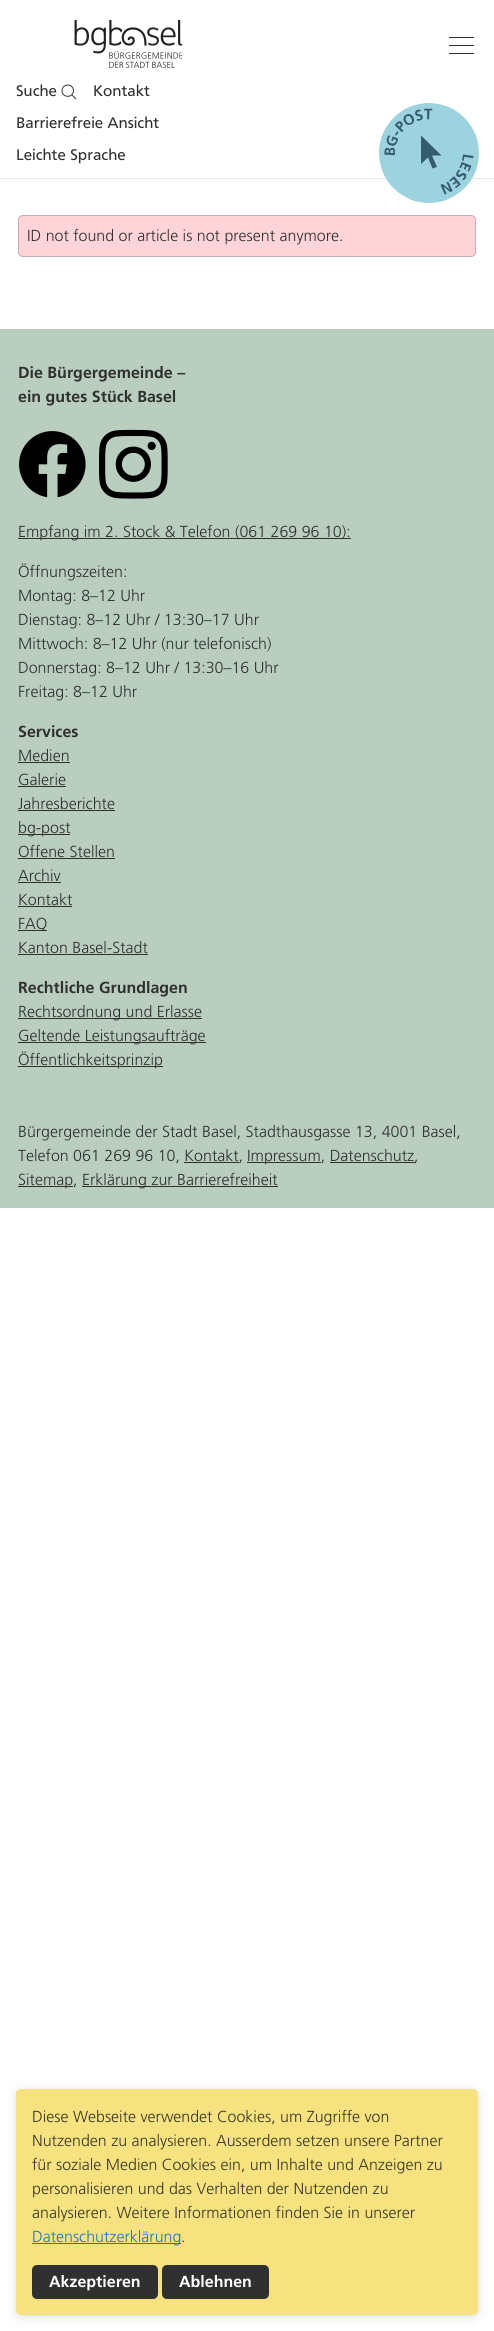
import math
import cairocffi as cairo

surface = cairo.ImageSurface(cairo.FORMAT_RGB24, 494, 2331)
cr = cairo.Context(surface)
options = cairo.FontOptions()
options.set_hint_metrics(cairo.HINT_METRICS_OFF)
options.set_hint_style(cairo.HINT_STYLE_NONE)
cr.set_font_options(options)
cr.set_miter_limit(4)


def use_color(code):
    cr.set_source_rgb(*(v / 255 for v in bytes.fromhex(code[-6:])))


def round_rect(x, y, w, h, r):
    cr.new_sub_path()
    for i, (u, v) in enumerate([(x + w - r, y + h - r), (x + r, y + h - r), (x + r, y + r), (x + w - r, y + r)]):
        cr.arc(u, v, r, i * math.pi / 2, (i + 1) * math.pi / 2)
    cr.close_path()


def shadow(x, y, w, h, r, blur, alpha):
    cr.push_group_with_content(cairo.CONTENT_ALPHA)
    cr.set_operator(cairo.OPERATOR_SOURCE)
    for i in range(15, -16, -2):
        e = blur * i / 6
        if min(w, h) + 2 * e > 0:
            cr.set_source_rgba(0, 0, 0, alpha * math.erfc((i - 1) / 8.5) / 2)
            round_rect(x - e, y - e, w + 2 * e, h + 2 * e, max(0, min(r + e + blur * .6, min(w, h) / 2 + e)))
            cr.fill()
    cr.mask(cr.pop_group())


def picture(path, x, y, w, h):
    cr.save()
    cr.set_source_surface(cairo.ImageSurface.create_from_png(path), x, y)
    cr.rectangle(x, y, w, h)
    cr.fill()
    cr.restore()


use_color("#ffffff")
cr.paint()
use_color("#eaeaea")
cr.rectangle(0, 178, 494, 1)
cr.fill()
picture("img1.png", 74, 20, 109, 48)
use_color("#303030")
cr.rectangle(449, 37, 25, 1)
cr.fill()
cr.rectangle(449, 45, 25, 1)
cr.fill()
cr.rectangle(449, 53, 25, 1)
cr.fill()
cr.select_font_face("Frutiger")
cr.set_font_size(16)
cr.move_to(16, 96)
cr.show_text("Suche")
picture("img2.png", 61, 84, 16, 16)
cr.move_to(93, 96)
cr.show_text("Kontakt")
cr.move_to(16, 128)
cr.show_text("Barrierefreie Ansicht")
cr.move_to(16, 160)
cr.show_text("Leichte Sprache")
picture("img3.png", 379, 103, 100, 100)
use_color("#355b6f")
cr.new_path()
cr.move_to(432, 155.5)
cr.line_to(437, 167)
cr.line_to(432.5, 168.5)
cr.line_to(428, 157.5)
cr.line_to(421, 164)
cr.line_to(421, 135.5)
cr.line_to(441.5, 155.5)
cr.close_path()
cr.fill()
use_color("#ffd4d9")
round_rect(18, 215, 458, 42, 5)
cr.fill()
round_rect(18.5, 215.5, 457, 41, 4.5)
cr.set_source_rgba(0.188, 0.188, 0.188, 0.25)
cr.set_line_width(1)
cr.stroke()
cr.select_font_face("Frutiger Light")
use_color("#303030")
cr.move_to(27, 241)
cr.show_text("ID not found or article is not present anymore.")
use_color("#b9cebf")
cr.rectangle(0, 329, 494, 879)
cr.fill()
cr.select_font_face("Frutiger", cairo.FONT_SLANT_NORMAL, cairo.FONT_WEIGHT_BOLD)
use_color("#303030")
cr.move_to(18, 378)
cr.show_text("Die Bürgergemeinde –")
cr.move_to(18, 402)
cr.show_text("ein gutes Stück Basel")
picture("img4.png", 19, 431, 67, 67)
picture("img5.png", 99, 429, 69, 70)
cr.rectangle(18, 538, 333, 1)
cr.fill()
cr.select_font_face("Frutiger Light")
cr.move_to(18, 537)
cr.show_text("Empfang im 2. Stock & Telefon (061 269 96 10):")
cr.move_to(18, 577)
cr.show_text("Öffnungszeiten:")
cr.move_to(18, 601)
cr.show_text("Montag: 8–12 Uhr")
cr.move_to(18, 625)
cr.show_text("Dienstag: 8–12 Uhr / 13:30–17 Uhr")
cr.move_to(18, 649)
cr.show_text("Mittwoch: 8–12 Uhr (nur telefonisch)")
cr.move_to(18, 673)
cr.show_text("Donnerstag: 8–12 Uhr / 13:30–16 Uhr")
cr.move_to(18, 697)
cr.show_text("Freitag: 8–12 Uhr")
cr.select_font_face("Frutiger", cairo.FONT_SLANT_NORMAL, cairo.FONT_WEIGHT_BOLD)
cr.move_to(18, 737)
cr.show_text("Services")
cr.select_font_face("Frutiger Light")
cr.move_to(18, 761)
cr.show_text("Medien")
cr.rectangle(18, 762, 52, 1)
cr.fill()
cr.move_to(18, 785)
cr.show_text("Galerie")
cr.rectangle(18, 786, 48, 1)
cr.fill()
cr.move_to(18, 809)
cr.show_text("Jahresberichte")
cr.rectangle(18, 810, 97, 1)
cr.fill()
cr.rectangle(18, 834, 52, 1)
cr.fill()
cr.move_to(18, 833)
cr.show_text("bg-post")
cr.move_to(18, 857)
cr.show_text("Offene Stellen")
cr.rectangle(18, 858, 97, 1)
cr.fill()
cr.move_to(18, 881)
cr.show_text("Archiv")
cr.rectangle(18, 882, 43, 1)
cr.fill()
cr.move_to(18, 905)
cr.show_text("Kontakt")
cr.rectangle(18, 906, 54, 1)
cr.fill()
cr.rectangle(18, 930, 29, 1)
cr.fill()
cr.move_to(18, 929)
cr.show_text("FAQ")
cr.move_to(18, 953)
cr.show_text("Kanton Basel-Stadt")
cr.rectangle(18, 954, 130, 1)
cr.fill()
cr.select_font_face("Frutiger", cairo.FONT_SLANT_NORMAL, cairo.FONT_WEIGHT_BOLD)
cr.move_to(18, 993)
cr.show_text("Rechtliche Grundlagen")
cr.rectangle(18, 1018, 184, 1)
cr.fill()
cr.select_font_face("Frutiger Light")
cr.move_to(18, 1017)
cr.show_text("Rechtsordnung und Erlasse")
cr.rectangle(18, 1042, 188, 1)
cr.fill()
cr.move_to(18, 1041)
cr.show_text("Geltende Leistungsaufträge")
cr.rectangle(18, 1066, 145, 1)
cr.fill()
cr.move_to(18, 1065)
cr.show_text("Öffentlichkeitsprinzip")
cr.move_to(18, 1137)
cr.show_text("Bürgergemeinde der Stadt Basel, Stadthausgasse 13, 4001 Basel,")
cr.move_to(18, 1161)
cr.show_text("Telefon 061 269 96 10, Kontakt,")
cr.rectangle(247, 1162, 74, 1)
cr.fill()
cr.move_to(247, 1161)
cr.show_text("Impressum, Datenschutz,")
cr.rectangle(184, 1162, 55, 1)
cr.fill()
cr.rectangle(330, 1162, 85, 1)
cr.fill()
cr.rectangle(18, 1186, 55, 1)
cr.fill()
cr.move_to(18, 1185)
cr.show_text("Sitemap,")
cr.rectangle(82, 1186, 196, 1)
cr.fill()
cr.move_to(82, 1185)
cr.show_text("Erklärung zur Barrierefreiheit")
use_color("#adadad")
shadow(16, 2091, 462, 226, 5, 5, 0.4)
use_color("#f6e27f")
round_rect(16, 2089, 462, 226, 5)
cr.fill()
use_color("#3a3628")
cr.move_to(32, 2122)
cr.show_text("Diese Webseite verwendet Cookies, um Zugriffe von")
cr.move_to(32, 2146)
cr.show_text("Nutzenden zu analysieren. Ausserdem setzen unsere Partner")
cr.move_to(32, 2170)
cr.show_text("für soziale Medien Cookies ein, um Inhalte und Anzeigen zu")
cr.move_to(32, 2194)
cr.show_text("personalisieren und das Verhalten der Nutzenden zu")
cr.move_to(32, 2218)
cr.show_text("analysieren. Weitere Informationen finden Sie in unserer")
use_color("#1e75c5")
cr.rectangle(32, 2243, 149, 1)
cr.fill()
cr.move_to(32, 2242)
cr.show_text("Datenschutzerklärung")
use_color("#3a3628")
cr.move_to(181, 2242)
cr.show_text(".")
use_color("#303030")
round_rect(32, 2265, 126, 34, 5)
cr.fill()
cr.select_font_face("Frutiger", cairo.FONT_SLANT_NORMAL, cairo.FONT_WEIGHT_BOLD)
use_color("#ffffff")
cr.move_to(49, 2287)
cr.show_text("Akzeptieren")
use_color("#303030")
round_rect(162, 2265, 107, 34, 5)
cr.fill()
use_color("#ffffff")
cr.move_to(179, 2287)
cr.show_text("Ablehnen")
surface.write_to_png("result.png")
